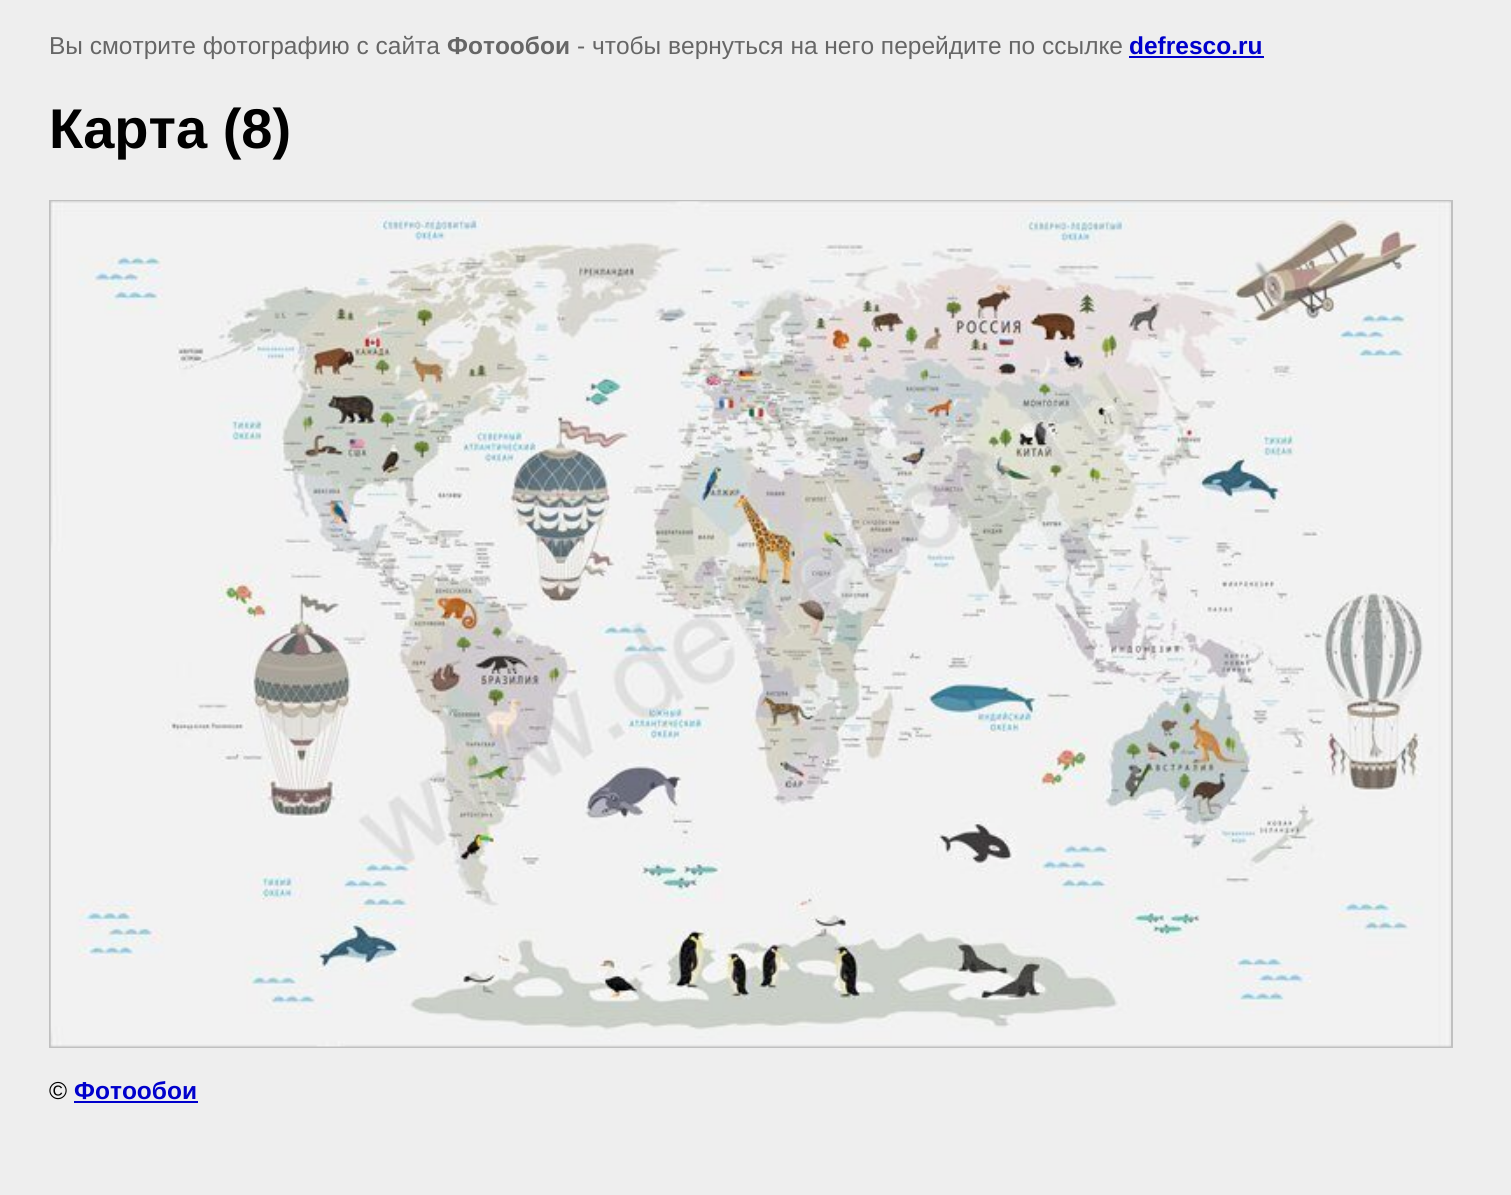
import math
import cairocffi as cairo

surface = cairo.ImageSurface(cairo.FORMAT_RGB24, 1511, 1195)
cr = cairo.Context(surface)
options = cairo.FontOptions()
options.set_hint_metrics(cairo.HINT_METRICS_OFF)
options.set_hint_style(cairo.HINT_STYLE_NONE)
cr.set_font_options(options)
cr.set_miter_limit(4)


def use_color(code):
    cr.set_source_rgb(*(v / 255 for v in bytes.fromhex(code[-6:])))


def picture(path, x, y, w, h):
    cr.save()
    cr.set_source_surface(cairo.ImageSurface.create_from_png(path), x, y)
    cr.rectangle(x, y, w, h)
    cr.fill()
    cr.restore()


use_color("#eeeeee")
cr.paint()
cr.select_font_face("Liberation Sans")
cr.set_font_size(24.5)
use_color("#666666")
cr.move_to(49, 54)
cr.show_text("Вы смотрите фотографию с сайта")
cr.select_font_face("Liberation Sans", cairo.FONT_SLANT_NORMAL, cairo.FONT_WEIGHT_BOLD)
cr.move_to(447, 54)
cr.show_text("Фотообои")
cr.select_font_face("Liberation Sans")
cr.move_to(577, 54)
cr.show_text("- чтобы вернуться на него перейдите по ссылке")
cr.select_font_face("Liberation Sans", cairo.FONT_SLANT_NORMAL, cairo.FONT_WEIGHT_BOLD)
use_color("#0000cc")
cr.move_to(1129, 54)
cr.show_text("defresco.ru")
cr.rectangle(1129, 56, 135, 2)
cr.fill()
cr.set_font_size(56)
use_color("#000000")
cr.move_to(49, 148)
cr.show_text("Карта (8)")
cr.rectangle(50, 201, 1402, 846)
use_color("#c0c0c0")
cr.stroke()
picture("img1.png", 50, 201, 1401, 846)
cr.select_font_face("Liberation Sans")
cr.set_font_size(24.5)
use_color("#000000")
cr.move_to(49, 1099)
cr.show_text("©")
cr.select_font_face("Liberation Sans", cairo.FONT_SLANT_NORMAL, cairo.FONT_WEIGHT_BOLD)
use_color("#0000cc")
cr.move_to(74, 1099)
cr.show_text("Фотообои")
cr.rectangle(74, 1101, 124, 2)
cr.fill()
surface.write_to_png("result.png")
